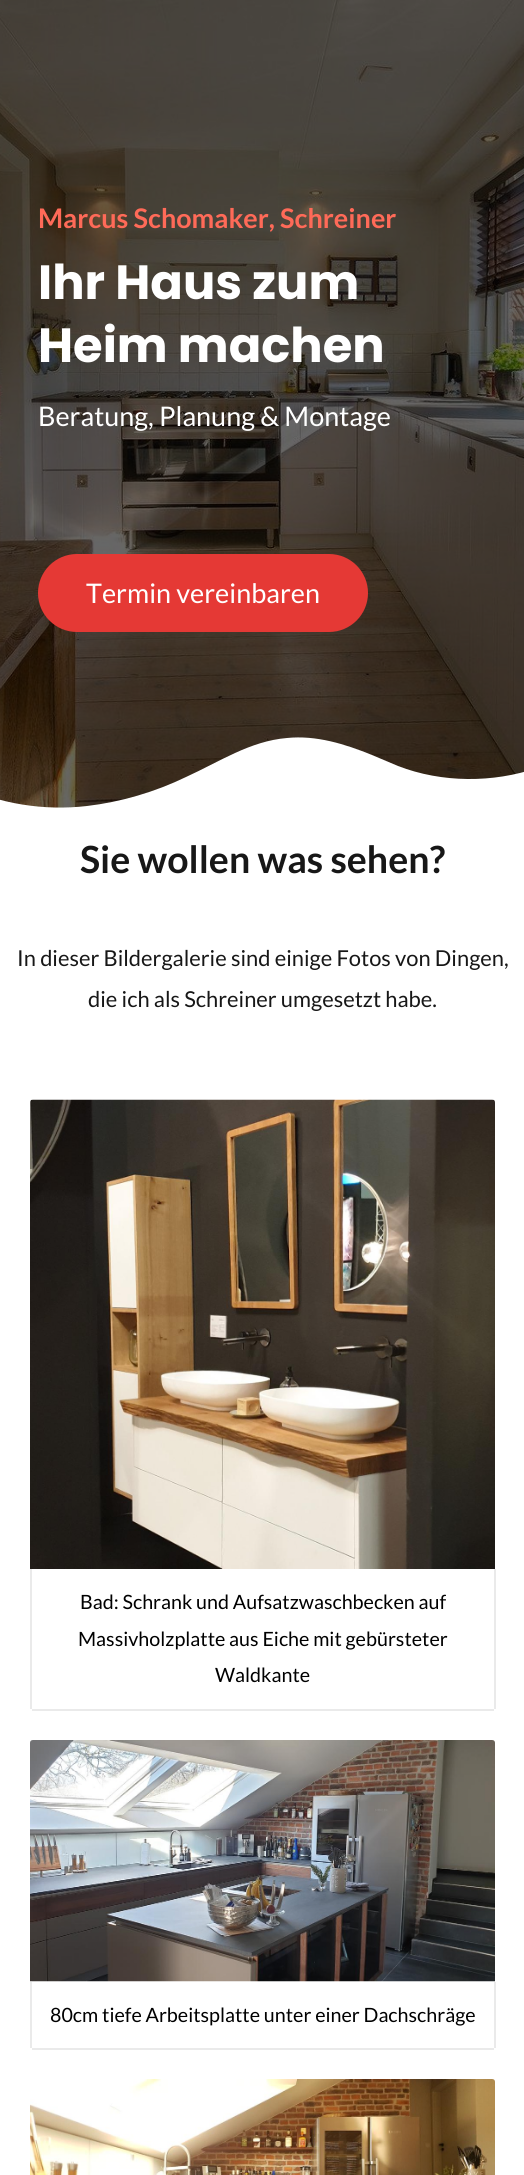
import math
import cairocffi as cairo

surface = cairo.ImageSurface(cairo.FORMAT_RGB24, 524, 2175)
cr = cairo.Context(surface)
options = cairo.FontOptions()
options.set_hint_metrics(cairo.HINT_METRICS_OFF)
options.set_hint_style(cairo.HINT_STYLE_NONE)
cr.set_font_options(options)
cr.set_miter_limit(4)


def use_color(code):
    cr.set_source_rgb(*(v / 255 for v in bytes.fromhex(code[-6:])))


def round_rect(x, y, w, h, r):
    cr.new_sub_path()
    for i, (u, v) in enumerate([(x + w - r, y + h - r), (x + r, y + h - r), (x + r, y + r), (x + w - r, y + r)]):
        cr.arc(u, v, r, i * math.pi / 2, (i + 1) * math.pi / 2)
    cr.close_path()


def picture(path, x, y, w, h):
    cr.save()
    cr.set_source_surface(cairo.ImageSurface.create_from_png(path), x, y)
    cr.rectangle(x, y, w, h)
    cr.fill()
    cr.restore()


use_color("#ffffff")
cr.paint()
picture("img1.png", 0, 0, 524, 808)
cr.select_font_face("Lato", cairo.FONT_SLANT_NORMAL, cairo.FONT_WEIGHT_BOLD)
cr.set_font_size(27)
use_color("#ff6a58")
cr.move_to(38, 228)
cr.show_text("Marcus Schomaker, Schreiner")
cr.select_font_face("Poppins", cairo.FONT_SLANT_NORMAL, cairo.FONT_WEIGHT_BOLD)
cr.set_font_size(48)
use_color("#ffffff")
cr.move_to(38, 299)
cr.show_text("Ihr Haus zum")
cr.move_to(38, 362)
cr.show_text("Heim machen")
cr.select_font_face("Lato")
cr.set_font_size(27)
cr.move_to(38, 426)
cr.show_text("Beratung, Planung & Montage")
use_color("#e53935")
round_rect(38, 554, 330, 78, 39)
cr.fill()
use_color("#ffffff")
cr.move_to(86, 603)
cr.show_text("Termin vereinbaren")
cr.new_path()
cr.move_to(87, 806)
cr.curve_to(121, 802, 155, 792, 186, 777)
cr.curve_to(219, 762, 250, 741, 287, 738)
cr.curve_to(316, 735, 345, 744, 372, 755)
cr.line_to(398, 766)
cr.curve_to(442, 783, 493, 783, 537, 768)
cr.curve_to(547, 765, 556, 761, 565, 756)
cr.line_to(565, 812)
cr.line_to(-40, 812)
cr.line_to(-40, 785)
cr.curve_to(-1, 804, 44, 811, 87, 806)
cr.close_path()
cr.fill()
cr.select_font_face("Lato", cairo.FONT_SLANT_NORMAL, cairo.FONT_WEIGHT_BOLD)
cr.set_font_size(37.5)
use_color("#171717")
cr.move_to(80, 873)
cr.show_text("Sie wollen was sehen?")
cr.select_font_face("Lato")
cr.set_font_size(21.9)
cr.move_to(17, 966)
cr.show_text("In dieser Bildergalerie sind einige Fotos von Dingen,")
cr.move_to(88, 1007)
cr.show_text("die ich als Schreiner umgesetzt habe.")
picture("img2.png", 30, 1099, 465, 470)
use_color("#eaeaea")
cr.rectangle(494, 1569, 2, 140)
cr.fill()
cr.rectangle(32, 1709, 462, 2)
cr.fill()
cr.rectangle(30, 1569, 2, 140)
cr.fill()
cr.set_font_size(19.7)
use_color("#000000")
cr.move_to(80, 1609)
cr.show_text("Bad: Schrank und Aufsatzwaschbecken auf")
cr.move_to(78, 1646)
cr.show_text("Massivholzplatte aus Eiche mit gebürsteter")
cr.move_to(215, 1682)
cr.show_text("Waldkante")
picture("img3.png", 30, 1740, 465, 242)
use_color("#eaeaea")
cr.rectangle(494, 1982, 2, 66)
cr.fill()
cr.rectangle(32, 2048, 462, 2)
cr.fill()
cr.rectangle(30, 1982, 2, 66)
cr.fill()
use_color("#000000")
cr.move_to(50, 2022)
cr.show_text("80cm tiefe Arbeitsplatte unter einer Dachschräge")
picture("img4.png", 30, 2079, 465, 96)
surface.write_to_png("result.png")
